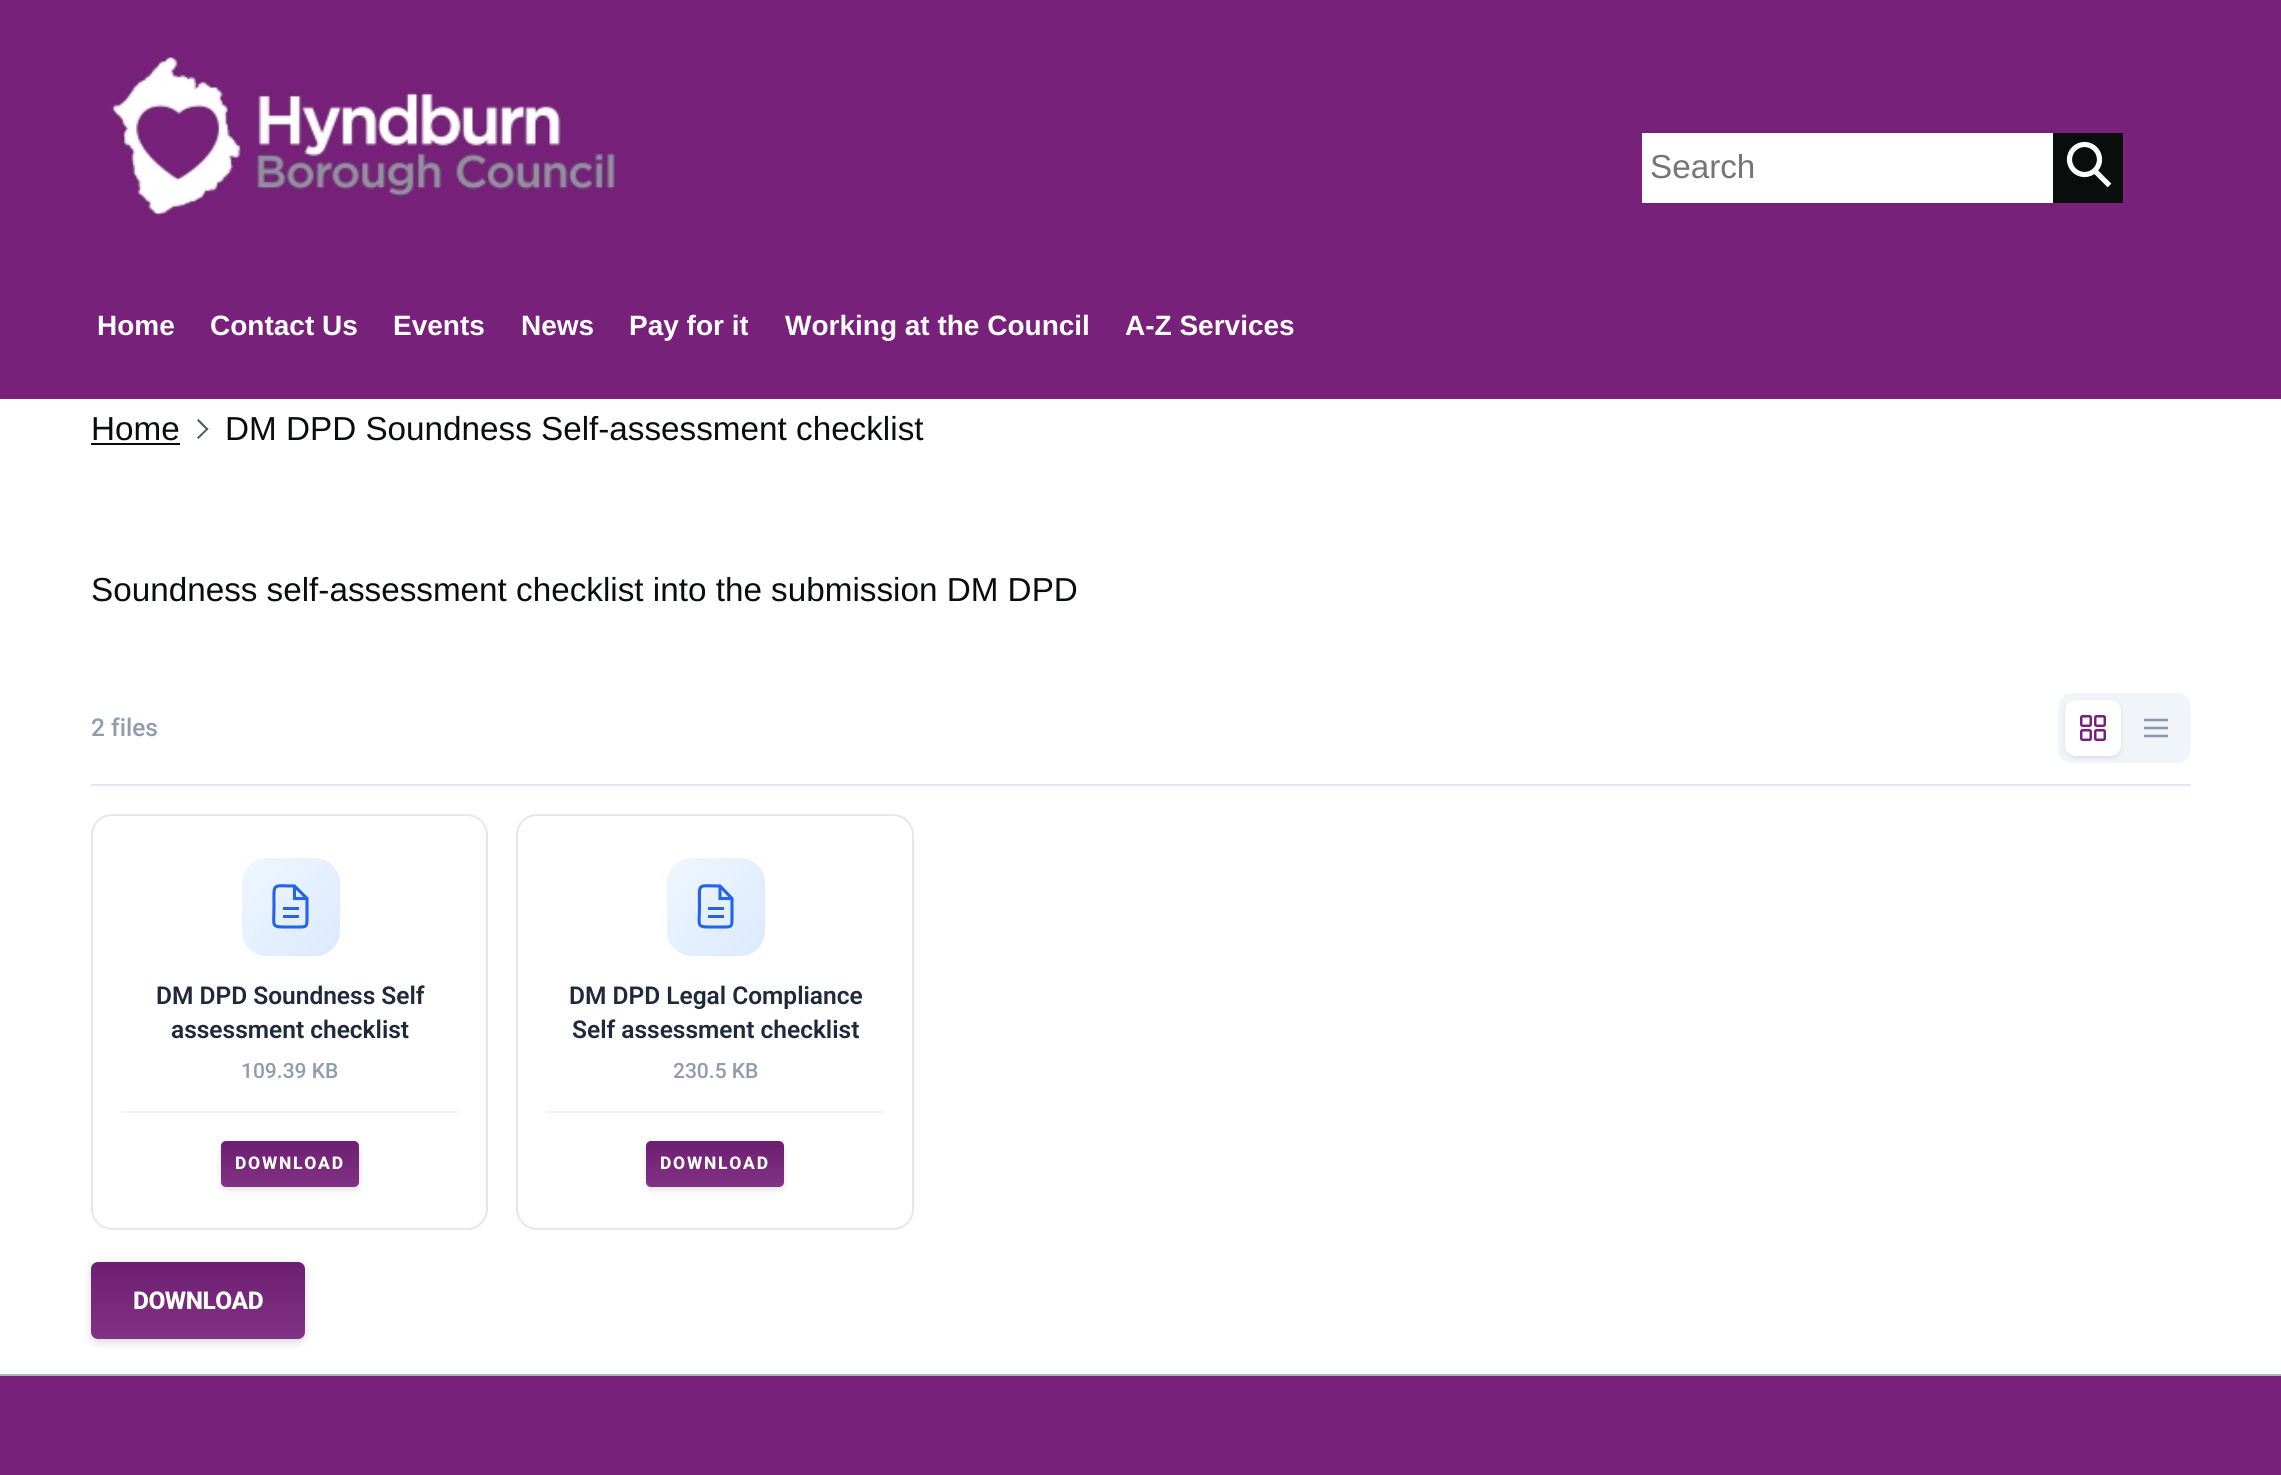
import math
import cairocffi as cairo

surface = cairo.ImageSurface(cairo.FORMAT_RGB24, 2281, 1475)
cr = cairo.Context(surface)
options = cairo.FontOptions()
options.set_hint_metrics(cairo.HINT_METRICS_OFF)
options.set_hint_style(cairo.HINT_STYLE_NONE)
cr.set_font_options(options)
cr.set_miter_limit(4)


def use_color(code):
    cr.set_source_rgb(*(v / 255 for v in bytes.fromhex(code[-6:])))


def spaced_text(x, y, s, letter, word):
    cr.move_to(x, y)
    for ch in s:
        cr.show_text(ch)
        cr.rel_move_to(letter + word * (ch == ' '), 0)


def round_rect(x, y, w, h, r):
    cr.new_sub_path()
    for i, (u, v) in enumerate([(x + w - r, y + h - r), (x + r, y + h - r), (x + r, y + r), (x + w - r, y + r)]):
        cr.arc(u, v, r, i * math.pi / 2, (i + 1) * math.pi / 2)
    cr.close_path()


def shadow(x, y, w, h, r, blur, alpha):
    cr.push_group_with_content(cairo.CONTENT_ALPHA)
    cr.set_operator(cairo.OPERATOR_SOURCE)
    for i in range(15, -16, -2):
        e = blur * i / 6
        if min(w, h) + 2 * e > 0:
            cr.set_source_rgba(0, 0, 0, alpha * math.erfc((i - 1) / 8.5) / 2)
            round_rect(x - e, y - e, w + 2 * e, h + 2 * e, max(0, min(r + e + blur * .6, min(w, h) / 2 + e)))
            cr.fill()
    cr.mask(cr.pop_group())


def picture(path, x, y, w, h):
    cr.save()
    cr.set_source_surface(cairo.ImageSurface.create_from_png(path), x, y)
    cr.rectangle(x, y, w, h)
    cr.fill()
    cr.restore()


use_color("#ffffff")
cr.paint()
use_color("#77217a")
cr.rectangle(0, 0, 2281, 399)
cr.fill()
picture("img1.png", 111, 55, 506, 161)
use_color("#ffffff")
cr.rectangle(1642, 133, 411, 70)
cr.fill()
cr.select_font_face("Liberation Sans")
cr.set_font_size(33.25)
use_color("#757575")
cr.move_to(1650, 178)
cr.show_text("Search")
use_color("#0b0c0c")
cr.rectangle(2053, 133, 70, 70)
cr.fill()
cr.arc(2084.5, 159.5, 15, 0, 2 * math.pi)
use_color("#ffffff")
cr.set_line_width(5.2)
cr.stroke()
cr.new_path()
cr.move_to(2094.5, 170.5)
cr.line_to(2109.5, 185.5)
cr.stroke()
cr.select_font_face("Liberation Sans", cairo.FONT_SLANT_NORMAL, cairo.FONT_WEIGHT_BOLD)
cr.set_font_size(28)
cr.move_to(97, 335)
cr.show_text("Home")
cr.move_to(210, 335)
cr.show_text("Contact Us")
cr.move_to(393, 335)
cr.show_text("Events")
cr.move_to(521, 335)
cr.show_text("News")
cr.move_to(629, 335)
cr.show_text("Pay for it")
cr.move_to(785, 335)
cr.show_text("Working at the Council")
cr.move_to(1125, 335)
cr.show_text("A-Z Services")
cr.select_font_face("Liberation Sans")
cr.set_font_size(33.25)
use_color("#0b0c0c")
cr.move_to(91, 440)
cr.show_text("Home")
cr.rectangle(91, 443, 89, 2)
cr.fill()
use_color("#505a5f")
cr.new_path()
cr.move_to(198.5, 419)
cr.line_to(208.5, 429)
cr.line_to(207, 430.5)
cr.line_to(197, 420.5)
cr.close_path()
cr.fill()
cr.new_path()
cr.move_to(207, 428)
cr.line_to(208.5, 429)
cr.line_to(198.5, 439)
cr.line_to(197, 437.5)
cr.close_path()
cr.fill()
use_color("#0b0c0c")
cr.move_to(225, 440)
cr.show_text("DM DPD Soundness Self-assessment checklist")
cr.move_to(91, 601)
cr.show_text("Soundness self-assessment checklist into the submission DM DPD")
use_color("#e2e8f0")
cr.rectangle(91, 784, 2100, 2)
cr.fill()
cr.select_font_face("Roboto Medium")
cr.set_font_size(24.5)
use_color("#8f9baf")
cr.move_to(91, 736)
cr.show_text("2 files")
use_color("#f1f5f9")
round_rect(2058, 693, 133, 70, 14)
cr.fill()
use_color("#000000")
shadow(2065, 702, 56, 56, 11, 2.5, 0.1)
use_color("#ffffff")
round_rect(2065, 700, 56, 56, 11)
cr.fill()
round_rect(2081.25, 716.25, 9.5, 9.5, 1.25)
use_color("#77217a")
cr.set_line_width(2.5)
cr.stroke()
round_rect(2095.25, 716.25, 9.5, 9.5, 1.25)
cr.stroke()
round_rect(2081.25, 730.25, 9.5, 9.5, 1.25)
cr.stroke()
round_rect(2095.25, 730.25, 9.5, 9.5, 1.25)
cr.stroke()
cr.new_path()
cr.move_to(2144, 720)
cr.line_to(2168, 720)
cr.move_to(2144, 728)
cr.line_to(2168, 728)
cr.move_to(2144, 736)
cr.line_to(2168, 736)
use_color("#8a97ad")
cr.set_line_width(2.6)
cr.stroke()
round_rect(92, 815, 395, 414, 20)
use_color("#e5e7eb")
cr.set_line_width(2)
cr.stroke()
gradient = cairo.LinearGradient(242, 858, 340, 956)
gradient.add_color_stop_rgba(0, 0.937, 0.965, 1, 1)
gradient.add_color_stop_rgba(1, 0.859, 0.918, 0.996, 1)
cr.set_source(gradient)
round_rect(242, 858, 98, 98, 25)
cr.fill()
cr.new_path()
cr.move_to(294.5, 886)
cr.curve_to(271.5, 886, 274, 882, 274, 906.5)
cr.curve_to(274, 928, 270, 927, 290.5, 927)
cr.line_to(298.5, 927)
cr.curve_to(306.5, 927, 307, 926.5, 307, 919)
cr.line_to(307, 898.5)
cr.close_path()
cr.move_to(294.5, 886)
cr.line_to(294.5, 898.5)
cr.line_to(307, 898.5)
use_color("#2563eb")
cr.set_line_width(3.1)
cr.stroke()
cr.rectangle(283, 907, 16, 3)
cr.fill()
cr.rectangle(283, 915, 16, 3)
cr.fill()
cr.select_font_face("Roboto SemiBold")
use_color("#1e293b")
cr.move_to(156, 1004)
cr.show_text("DM DPD Soundness Self")
cr.move_to(171, 1038)
cr.show_text("assessment checklist")
cr.select_font_face("Roboto Medium")
cr.set_font_size(21)
use_color("#8f9baf")
cr.move_to(241, 1078)
cr.show_text("109.39 KB")
use_color("#f1f5f9")
cr.rectangle(121, 1111, 338, 2)
cr.fill()
use_color("#000000")
shadow(221, 1145, 138, 45, 5, 3.5, 0.12)
use_color("#77217a")
round_rect(221, 1141, 138, 46, 5)
cr.fill()
gradient = cairo.LinearGradient(290, 1141, 290, 1187)
gradient.add_color_stop_rgba(0, 0, 0, 0, 0.08)
gradient.add_color_stop_rgba(1, 1, 1, 1, 0.08)
cr.set_source(gradient)
round_rect(221, 1141, 138, 46, 5)
cr.fill()
cr.select_font_face("Roboto ExtraBold")
cr.set_font_size(17.5)
use_color("#ffffff")
spaced_text(235, 1169, "DOWNLOAD", 1.75, 0)
round_rect(517, 815, 396, 414, 20)
use_color("#e5e7eb")
cr.set_line_width(2)
cr.stroke()
gradient = cairo.LinearGradient(667, 858, 765, 956)
gradient.add_color_stop_rgba(0, 0.937, 0.965, 1, 1)
gradient.add_color_stop_rgba(1, 0.859, 0.918, 0.996, 1)
cr.set_source(gradient)
round_rect(667, 858, 98, 98, 25)
cr.fill()
cr.new_path()
cr.move_to(720, 886)
cr.curve_to(696.5, 886, 699.5, 882, 699.5, 906.5)
cr.curve_to(699.5, 928, 695, 927, 716, 927)
cr.line_to(724, 927)
cr.curve_to(731.5, 927, 732, 926.5, 732, 919)
cr.line_to(732, 898.5)
cr.close_path()
cr.move_to(720, 886)
cr.line_to(720, 898.5)
cr.line_to(732, 898.5)
use_color("#2563eb")
cr.set_line_width(3.1)
cr.stroke()
cr.rectangle(708, 907, 16, 3)
cr.fill()
cr.rectangle(708, 915, 16, 3)
cr.fill()
cr.select_font_face("Roboto SemiBold")
cr.set_font_size(24.5)
use_color("#1e293b")
cr.move_to(569, 1004)
cr.show_text("DM DPD Legal Compliance")
cr.move_to(572, 1038)
cr.show_text("Self assessment checklist")
cr.select_font_face("Roboto Medium")
cr.set_font_size(21)
use_color("#8f9baf")
cr.move_to(673, 1078)
cr.show_text("230.5 KB")
use_color("#f1f5f9")
cr.rectangle(546, 1111, 338, 2)
cr.fill()
use_color("#000000")
shadow(646, 1145, 138, 45, 5, 3.5, 0.12)
use_color("#77217a")
round_rect(646, 1141, 138, 46, 5)
cr.fill()
gradient = cairo.LinearGradient(715, 1141, 715, 1187)
gradient.add_color_stop_rgba(0, 0, 0, 0, 0.08)
gradient.add_color_stop_rgba(1, 1, 1, 1, 0.08)
cr.set_source(gradient)
round_rect(646, 1141, 138, 46, 5)
cr.fill()
cr.select_font_face("Roboto ExtraBold")
cr.set_font_size(17.5)
use_color("#ffffff")
spaced_text(660, 1169, "DOWNLOAD", 1.75, 0)
use_color("#000000")
shadow(91, 1265, 214, 77, 7, 5, 0.15)
use_color("#77217a")
round_rect(91, 1262, 214, 77, 7)
cr.fill()
gradient = cairo.LinearGradient(198, 1262, 198, 1339)
gradient.add_color_stop_rgba(0, 0, 0, 0, 0.08)
gradient.add_color_stop_rgba(1, 1, 1, 1, 0.08)
cr.set_source(gradient)
round_rect(91, 1262, 214, 77, 7)
cr.fill()
cr.set_font_size(24.5)
use_color("#ffffff")
spaced_text(133, 1309, "DOWNLOAD", -0.5, 0)
use_color("#77217a")
cr.rectangle(0, 1376, 2281, 99)
cr.fill()
use_color("#b1b4b6")
cr.rectangle(0, 1374, 2281, 2)
cr.fill()
surface.write_to_png("result.png")
